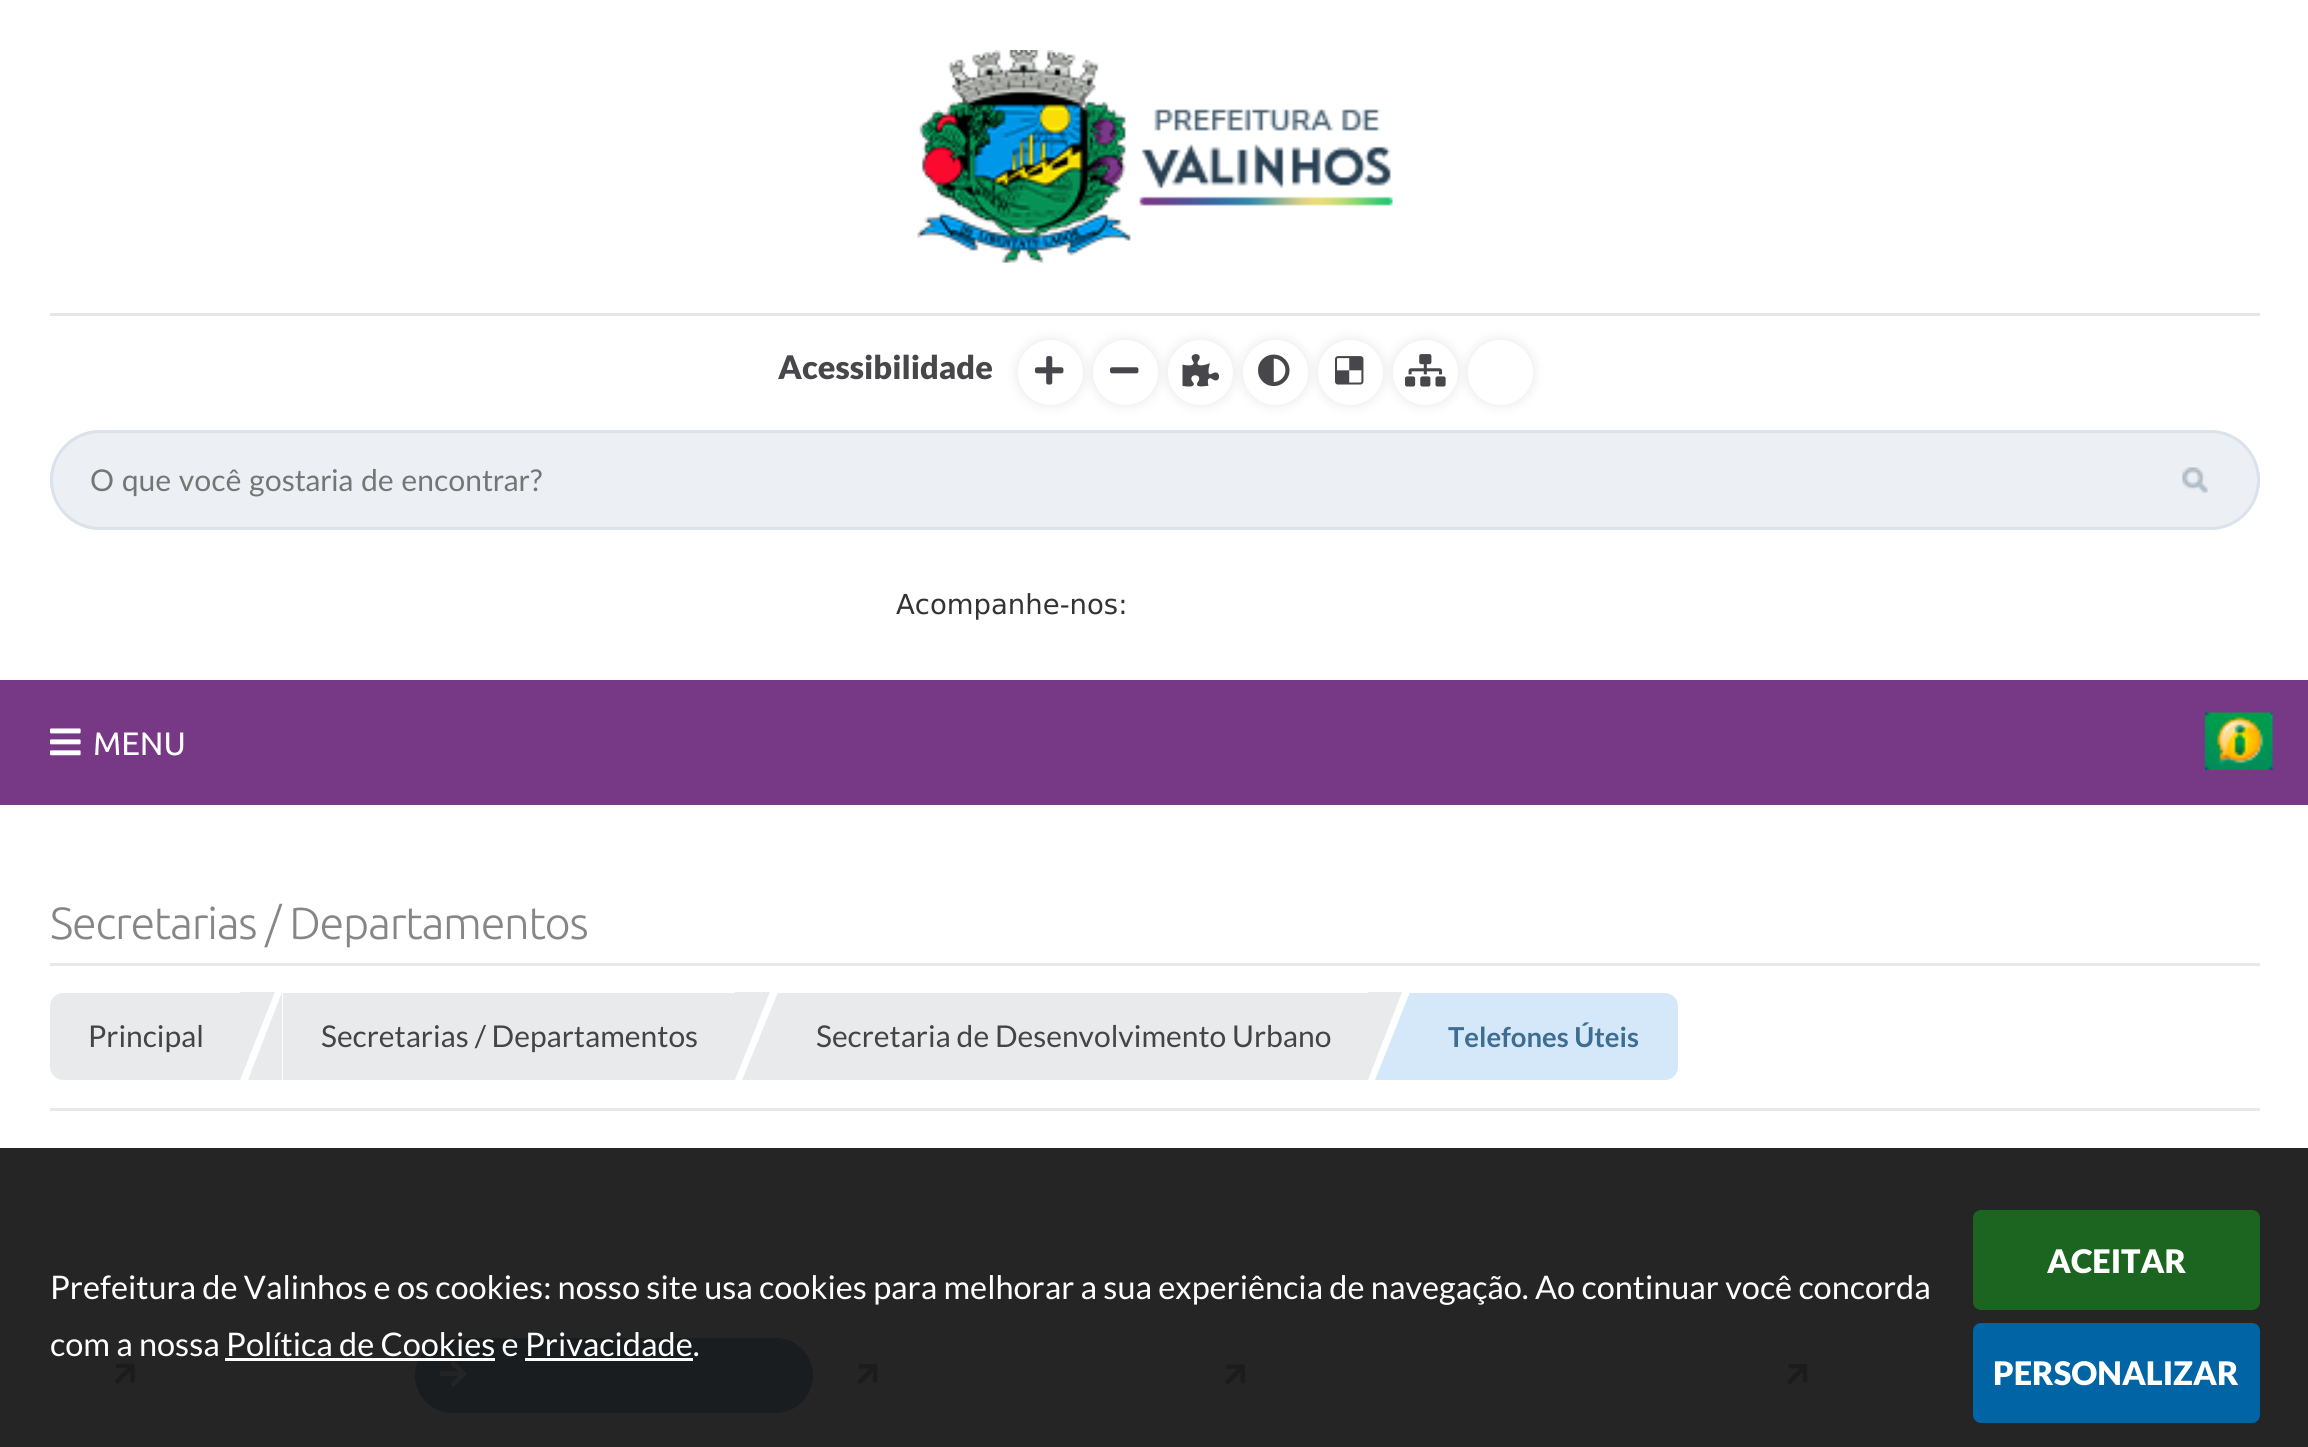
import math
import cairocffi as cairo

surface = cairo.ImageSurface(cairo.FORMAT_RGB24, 2308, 1447)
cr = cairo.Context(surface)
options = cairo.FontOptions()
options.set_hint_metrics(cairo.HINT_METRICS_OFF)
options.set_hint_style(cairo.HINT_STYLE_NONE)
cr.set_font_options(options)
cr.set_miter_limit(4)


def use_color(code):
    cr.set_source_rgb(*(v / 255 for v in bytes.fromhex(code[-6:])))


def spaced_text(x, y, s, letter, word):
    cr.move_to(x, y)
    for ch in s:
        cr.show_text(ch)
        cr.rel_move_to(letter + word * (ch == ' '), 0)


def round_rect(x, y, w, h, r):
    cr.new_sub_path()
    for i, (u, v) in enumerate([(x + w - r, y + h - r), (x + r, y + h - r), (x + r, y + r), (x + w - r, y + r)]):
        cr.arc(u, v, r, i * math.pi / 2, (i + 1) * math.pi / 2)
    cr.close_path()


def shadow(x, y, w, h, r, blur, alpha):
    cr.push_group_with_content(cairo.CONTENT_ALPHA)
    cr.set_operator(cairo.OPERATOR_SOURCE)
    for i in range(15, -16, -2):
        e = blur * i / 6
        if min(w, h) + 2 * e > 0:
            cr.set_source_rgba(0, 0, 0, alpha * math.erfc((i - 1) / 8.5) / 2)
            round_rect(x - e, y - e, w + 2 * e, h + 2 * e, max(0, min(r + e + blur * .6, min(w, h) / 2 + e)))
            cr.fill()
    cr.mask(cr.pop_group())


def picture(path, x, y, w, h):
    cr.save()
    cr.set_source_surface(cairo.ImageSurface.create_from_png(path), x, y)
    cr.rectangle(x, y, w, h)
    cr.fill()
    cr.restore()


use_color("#ffffff")
cr.paint()
use_color("#252525")
cr.rectangle(0, 1148, 2308, 299)
cr.fill()
picture("img1.png", 917, 50, 476, 213)
use_color("#e6e6e6")
cr.rectangle(50, 313, 2210, 3)
cr.fill()
cr.select_font_face("Lato Black")
cr.set_font_size(32.5)
use_color("#47474b")
cr.move_to(778, 379)
cr.show_text("Acessibilidade")
use_color("#000000")
shadow(1018, 340, 65, 65, 32.5, 6, 0.1)
use_color("#ffffff")
cr.arc(1050.5, 372.5, 32.5, 0, 2 * math.pi)
cr.fill()
picture("img2.png", 1035, 356, 29, 29)
use_color("#000000")
shadow(1093, 340, 65, 65, 32.5, 6, 0.1)
use_color("#ffffff")
cr.arc(1125.5, 372.5, 32.5, 0, 2 * math.pi)
cr.fill()
picture("img3.png", 1110, 367, 29, 7)
use_color("#000000")
shadow(1168, 340, 65, 65, 32.5, 6, 0.1)
use_color("#ffffff")
cr.arc(1200.5, 372.5, 32.5, 0, 2 * math.pi)
cr.fill()
picture("img4.png", 1182, 354, 38, 33)
use_color("#000000")
shadow(1243, 340, 65, 65, 32.5, 6, 0.1)
use_color("#ffffff")
cr.arc(1275.5, 372.5, 32.5, 0, 2 * math.pi)
cr.fill()
picture("img5.png", 1258, 354, 32, 33)
use_color("#000000")
shadow(1318, 340, 65, 65, 32.5, 6, 0.1)
use_color("#ffffff")
cr.arc(1350.5, 372.5, 32.5, 0, 2 * math.pi)
cr.fill()
picture("img6.png", 1335, 356, 29, 29)
use_color("#000000")
shadow(1393, 340, 65, 65, 32.5, 6, 0.1)
use_color("#ffffff")
cr.arc(1425.5, 372.5, 32.5, 0, 2 * math.pi)
cr.fill()
picture("img7.png", 1405, 354, 41, 33)
use_color("#000000")
shadow(1468, 340, 65, 65, 32.5, 6, 0.1)
use_color("#ffffff")
cr.arc(1500.5, 372.5, 32.5, 0, 2 * math.pi)
cr.fill()
use_color("#ecf0f4")
round_rect(50, 430, 2210, 100, 50)
cr.fill()
picture("img8.png", 2182, 467, 26, 26)
round_rect(51.5, 431.5, 2207, 97, 48.5)
use_color("#dae2eb")
cr.set_line_width(3)
cr.stroke()
cr.select_font_face("Lato")
cr.set_font_size(30)
use_color("#757575")
cr.move_to(90, 491)
cr.show_text("O que você gostaria de encontrar?")
cr.select_font_face("DejaVu Sans")
cr.set_font_size(27.5)
use_color("#333333")
cr.move_to(896, 614)
cr.show_text("Acompanhe-nos:")
use_color("#773886")
cr.rectangle(0, 680, 2308, 125)
cr.fill()
picture("img9.png", 50, 728, 31, 28)
cr.select_font_face("Ubuntu")
cr.set_font_size(32.5)
use_color("#ffffff")
cr.move_to(93, 755)
cr.show_text("MENU")
picture("img10.png", 2205, 712, 68, 58)
cr.select_font_face("Ubuntu Light")
cr.set_font_size(45)
use_color("#868686")
spaced_text(50, 939, "Secretarias / Departamentos", -1.25, 0)
use_color("#e9e9e9")
cr.rectangle(50, 963, 2210, 3)
cr.fill()
cr.rectangle(50, 1108, 2210, 3)
cr.fill()
use_color("#e9eaec")
cr.new_path()
cr.move_to(63, 993)
cr.line_to(240, 993)
cr.line_to(240, 1080)
cr.line_to(63, 1080)
cr.curve_to(56, 1080, 50, 1074, 50, 1067)
cr.line_to(50, 1006)
cr.curve_to(50, 999, 56, 993, 63, 993)
cr.close_path()
cr.fill()
cr.select_font_face("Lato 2")
cr.set_font_size(30)
use_color("#444444")
cr.move_to(88, 1047)
cr.show_text("Principal")
use_color("#e9eaec")
cr.new_path()
cr.move_to(240, 992)
cr.line_to(275, 992)
cr.line_to(240, 1080)
cr.close_path()
cr.fill()
cr.rectangle(283, 993, 452, 87)
cr.fill()
cr.new_path()
cr.move_to(282, 1080)
cr.line_to(248, 1080)
cr.line_to(282, 992)
cr.close_path()
cr.fill()
use_color("#444444")
cr.move_to(321, 1047)
cr.show_text("Secretarias / Departamentos")
use_color("#e9eaec")
cr.new_path()
cr.move_to(735, 992)
cr.line_to(770, 992)
cr.line_to(735, 1080)
cr.close_path()
cr.fill()
cr.rectangle(778, 993, 590, 87)
cr.fill()
cr.new_path()
cr.move_to(778, 1080)
cr.line_to(742, 1080)
cr.line_to(778, 992)
cr.close_path()
cr.fill()
use_color("#444444")
cr.move_to(816, 1047)
cr.show_text("Secretaria de Desenvolvimento Urbano")
use_color("#e9eaec")
cr.new_path()
cr.move_to(1368, 992)
cr.line_to(1402, 992)
cr.line_to(1368, 1080)
cr.close_path()
cr.fill()
use_color("#d4e8f9")
cr.new_path()
cr.move_to(1410, 993)
cr.line_to(1665, 993)
cr.curve_to(1672, 993, 1678, 999, 1678, 1006)
cr.line_to(1678, 1067)
cr.curve_to(1678, 1074, 1672, 1080, 1665, 1080)
cr.line_to(1410, 1080)
cr.close_path()
cr.fill()
cr.new_path()
cr.move_to(1410, 1080)
cr.line_to(1375, 1080)
cr.line_to(1410, 992)
cr.close_path()
cr.fill()
cr.select_font_face("Lato", cairo.FONT_SLANT_NORMAL, cairo.FONT_WEIGHT_BOLD)
cr.set_font_size(27.5)
use_color("#3d6d92")
cr.move_to(1448, 1047)
cr.show_text("Telefones Úteis")
picture("img11.png", 114, 1363, 21, 21)
use_color("#191d20")
round_rect(415, 1338, 398, 75, 37.5)
cr.fill()
picture("img12.png", 440, 1361, 27, 26)
picture("img13.png", 857, 1364, 21, 21)
picture("img14.png", 1225, 1364, 21, 21)
picture("img15.png", 1787, 1363, 21, 21)
cr.select_font_face("Lato 2")
cr.set_font_size(32.5)
use_color("#ffffff")
cr.move_to(50, 1299)
cr.show_text("Prefeitura de Valinhos e os cookies: nosso site usa cookies para melhorar a sua experiência de navegação. Ao continuar você concorda")
cr.move_to(50, 1356)
cr.show_text("com a nossa Política de Cookies e Privacidade.")
cr.rectangle(225, 1358, 270, 3)
cr.fill()
cr.rectangle(525, 1358, 168, 3)
cr.fill()
use_color("#1b6520")
round_rect(1973, 1210, 287, 100, 8)
cr.fill()
cr.select_font_face("Lato Black")
use_color("#ffffff")
cr.move_to(2047, 1273)
cr.show_text("ACEITAR")
use_color("#0164a4")
round_rect(1973, 1323, 287, 100, 8)
cr.fill()
use_color("#ffffff")
cr.move_to(1993, 1385)
cr.show_text("PERSONALIZAR")
surface.write_to_png("result.png")
